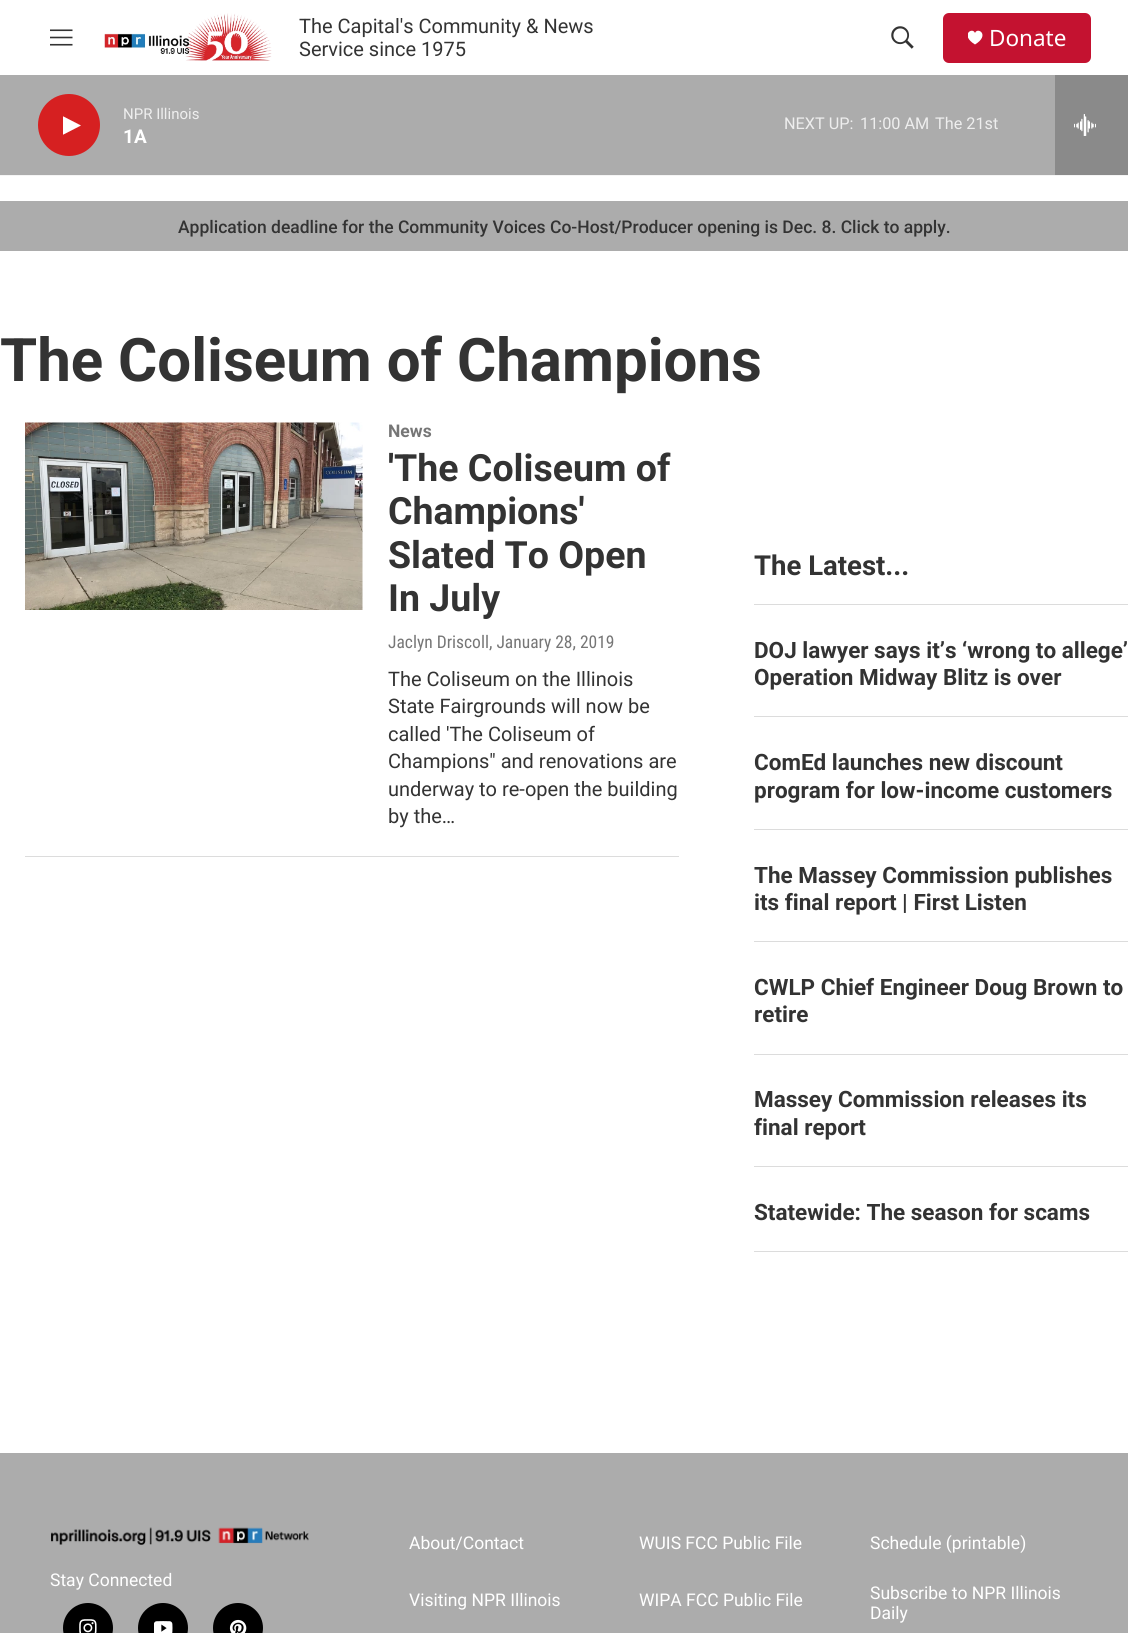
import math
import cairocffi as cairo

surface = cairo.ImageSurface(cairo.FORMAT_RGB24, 1128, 1633)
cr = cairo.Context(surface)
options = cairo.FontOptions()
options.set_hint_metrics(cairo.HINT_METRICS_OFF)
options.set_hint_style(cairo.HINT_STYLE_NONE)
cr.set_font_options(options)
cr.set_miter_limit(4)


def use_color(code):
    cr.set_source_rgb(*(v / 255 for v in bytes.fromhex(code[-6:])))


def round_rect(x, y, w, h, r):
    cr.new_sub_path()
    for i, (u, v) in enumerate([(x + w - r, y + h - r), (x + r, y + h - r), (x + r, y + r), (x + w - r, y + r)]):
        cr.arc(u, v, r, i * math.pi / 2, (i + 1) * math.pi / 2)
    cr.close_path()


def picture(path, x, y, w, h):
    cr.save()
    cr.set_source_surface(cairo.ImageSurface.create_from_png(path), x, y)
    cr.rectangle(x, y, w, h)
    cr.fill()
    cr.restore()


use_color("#ffffff")
cr.paint()
use_color("#f5f5f5")
cr.rectangle(0, 175, 1128, 1)
cr.fill()
picture("img1.png", 50, 29, 23, 17)
picture("img2.png", 104, 13, 168, 48)
cr.select_font_face("Roboto")
cr.set_font_size(20)
use_color("#333333")
cr.move_to(299, 33)
cr.show_text("The Capital's Community & News")
cr.move_to(299, 56)
cr.show_text("Service since 1975")
picture("img3.png", 891, 26, 23, 23)
use_color("#c41230")
round_rect(943, 13, 148, 50, 6)
cr.fill()
cr.save()
cr.rectangle(968, 30, 15, 15)
cr.clip()
use_color("#ffffff")
cr.new_path()
cr.move_to(975, 33)
cr.curve_to(972.5, 26.5, 959.5, 35, 975, 44.5)
cr.curve_to(990.5, 35, 977.5, 26.5, 975, 33)
cr.close_path()
cr.fill()
cr.restore()
cr.select_font_face("Noto Sans")
cr.set_font_size(22.5)
use_color("#ffffff")
cr.move_to(989, 46)
cr.show_text("Donate")
use_color("#acacac")
cr.rectangle(0, 75, 1055, 100)
cr.fill()
use_color("#d62021")
cr.arc(69, 125, 31, 0, 2 * math.pi)
cr.fill()
cr.save()
cr.rectangle(63, 114, 18, 24)
cr.clip()
use_color("#ffffff")
cr.new_path()
cr.move_to(62.5, 116)
cr.line_to(81, 125.5)
cr.line_to(62.5, 135)
cr.close_path()
cr.fill()
cr.restore()
cr.select_font_face("Roboto")
cr.set_font_size(15)
use_color("#eeeeee")
cr.move_to(123, 119)
cr.show_text("NPR Illinois")
cr.select_font_face("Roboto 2", cairo.FONT_SLANT_NORMAL, cairo.FONT_WEIGHT_BOLD)
cr.set_font_size(19)
use_color("#ffffff")
cr.move_to(123, 143)
cr.show_text("1A")
cr.select_font_face("Roboto")
cr.set_font_size(16.25)
use_color("#eeeeee")
cr.move_to(784, 129)
cr.show_text("NEXT UP:")
cr.move_to(860, 129)
cr.show_text("11:00 AM")
cr.move_to(935, 129)
cr.show_text("The 21st")
use_color("#8a8a8a")
cr.rectangle(1055, 75, 73, 100)
cr.fill()
picture("img4.png", 1074, 114, 22, 22)
use_color("#acacac")
cr.rectangle(0, 201, 1128, 50)
cr.fill()
cr.select_font_face("Roboto Medium")
cr.set_font_size(17.5)
use_color("#333333")
cr.move_to(178, 233)
cr.show_text("Application deadline for the Community Voices Co-Host/Producer opening is Dec. 8. Click to apply.")
cr.select_font_face("Roboto", cairo.FONT_SLANT_NORMAL, cairo.FONT_WEIGHT_BOLD)
cr.set_font_size(60)
cr.move_to(0, 381)
cr.show_text("The Coliseum of Champions")
use_color("#dcdcdc")
cr.rectangle(25, 856, 654, 1)
cr.fill()
picture("img5.png", 25, 422, 338, 188)
cr.set_font_size(17.5)
use_color("#767676")
cr.move_to(388, 437)
cr.show_text("News")
cr.set_font_size(37.5)
use_color("#333333")
cr.move_to(388, 481)
cr.show_text("'The Coliseum of")
cr.move_to(388, 524)
cr.show_text("Champions'")
cr.move_to(388, 568)
cr.show_text("Slated To Open")
cr.move_to(388, 611)
cr.show_text("In July")
cr.select_font_face("Roboto Condensed")
cr.set_font_size(17.5)
use_color("#767676")
cr.move_to(388, 648)
cr.show_text("Jaclyn Driscoll, January 28, 2019")
cr.select_font_face("Roboto")
cr.set_font_size(20)
use_color("#333333")
cr.move_to(388, 686)
cr.show_text("The Coliseum on the Illinois")
cr.move_to(388, 713)
cr.show_text("State Fairgrounds will now be")
cr.move_to(388, 741)
cr.show_text("called 'The Coliseum of")
cr.move_to(388, 768)
cr.show_text("Champions\" and renovations are")
cr.move_to(388, 796)
cr.show_text("underway to re-open the building")
cr.move_to(388, 823)
cr.show_text("by the…")
use_color("#dcdcdc")
cr.rectangle(754, 604, 374, 1)
cr.fill()
cr.select_font_face("Roboto", cairo.FONT_SLANT_NORMAL, cairo.FONT_WEIGHT_BOLD)
cr.set_font_size(27.5)
use_color("#333333")
cr.move_to(754, 575)
cr.show_text("The Latest...")
use_color("#dcdcdc")
cr.rectangle(754, 716, 374, 1)
cr.fill()
cr.set_font_size(22.5)
use_color("#333333")
cr.move_to(754, 658)
cr.show_text("DOJ lawyer says it’s ‘wrong to allege’")
cr.move_to(754, 685)
cr.show_text("Operation Midway Blitz is over")
use_color("#dcdcdc")
cr.rectangle(754, 829, 374, 1)
cr.fill()
use_color("#333333")
cr.move_to(754, 770)
cr.show_text("ComEd launches new discount")
cr.move_to(754, 798)
cr.show_text("program for low-income customers")
use_color("#dcdcdc")
cr.rectangle(754, 941, 374, 1)
cr.fill()
use_color("#333333")
cr.move_to(754, 883)
cr.show_text("The Massey Commission publishes")
cr.move_to(754, 910)
cr.show_text("its final report | First Listen")
use_color("#dcdcdc")
cr.rectangle(754, 1054, 374, 1)
cr.fill()
use_color("#333333")
cr.move_to(754, 995)
cr.show_text("CWLP Chief Engineer Doug Brown to")
cr.move_to(754, 1022)
cr.show_text("retire")
use_color("#dcdcdc")
cr.rectangle(754, 1166, 374, 1)
cr.fill()
use_color("#333333")
cr.move_to(754, 1107)
cr.show_text("Massey Commission releases its")
cr.move_to(754, 1135)
cr.show_text("final report")
use_color("#dcdcdc")
cr.rectangle(754, 1251, 374, 1)
cr.fill()
use_color("#333333")
cr.move_to(754, 1220)
cr.show_text("Statewide: The season for scams")
use_color("#acacac")
cr.rectangle(0, 1453, 1128, 180)
cr.fill()
picture("img6.png", 51, 1527, 258, 18)
cr.select_font_face("Roboto")
cr.set_font_size(17.5)
use_color("#ffffff")
cr.move_to(50, 1586)
cr.show_text("Stay Connected")
use_color("#000000")
cr.new_path()
cr.arc(88, 1628, 25, 0, 2 * math.pi)
cr.fill()
picture("img7.png", 79, 1619, 18, 14)
cr.arc(163, 1628, 25, 0, 2 * math.pi)
cr.fill()
picture("img8.png", 154, 1621, 19, 12)
cr.arc(238, 1628, 25, 0, 2 * math.pi)
cr.fill()
picture("img9.png", 229, 1619, 18, 14)
use_color("#ffffff")
cr.move_to(409, 1549)
cr.show_text("About/Contact")
cr.move_to(639, 1549)
cr.show_text("WUIS FCC Public File")
cr.move_to(870, 1549)
cr.show_text("Schedule (printable)")
cr.move_to(409, 1606)
cr.show_text("Visiting NPR Illinois")
cr.move_to(639, 1606)
cr.show_text("WIPA FCC Public File")
cr.move_to(870, 1599)
cr.show_text("Subscribe to NPR Illinois")
cr.move_to(870, 1619)
cr.show_text("Daily")
surface.write_to_png("result.png")
